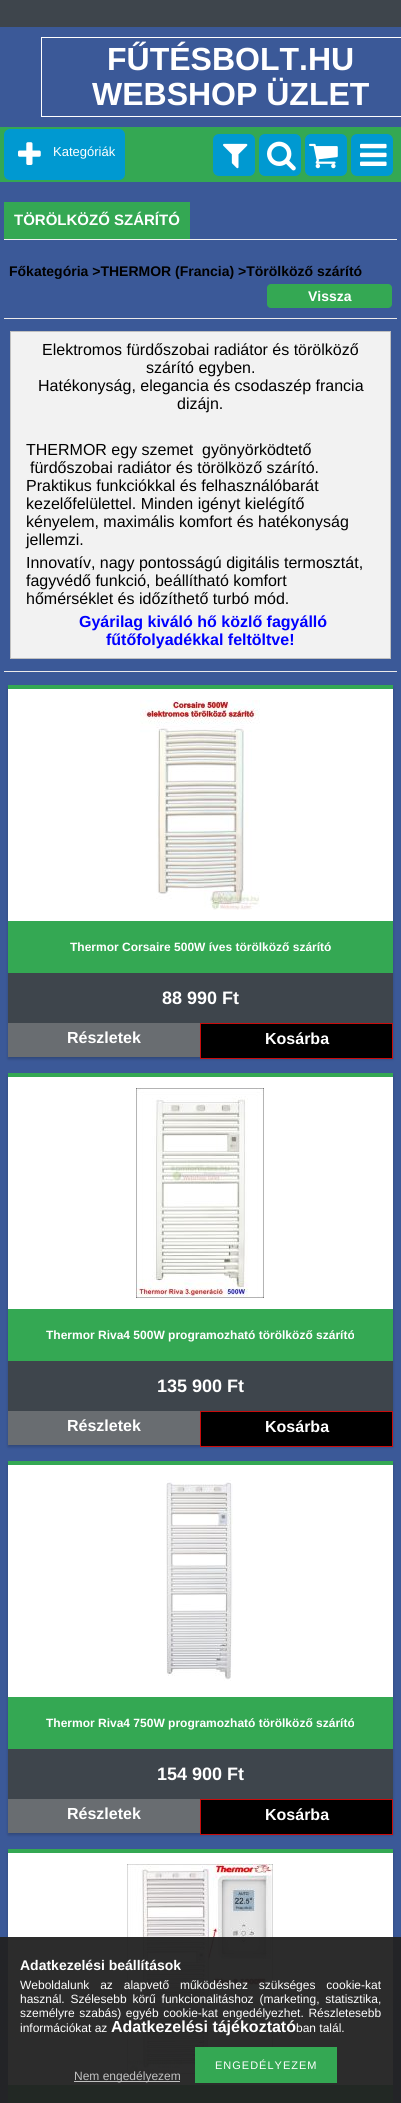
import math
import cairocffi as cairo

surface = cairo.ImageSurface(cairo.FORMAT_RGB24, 401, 2103)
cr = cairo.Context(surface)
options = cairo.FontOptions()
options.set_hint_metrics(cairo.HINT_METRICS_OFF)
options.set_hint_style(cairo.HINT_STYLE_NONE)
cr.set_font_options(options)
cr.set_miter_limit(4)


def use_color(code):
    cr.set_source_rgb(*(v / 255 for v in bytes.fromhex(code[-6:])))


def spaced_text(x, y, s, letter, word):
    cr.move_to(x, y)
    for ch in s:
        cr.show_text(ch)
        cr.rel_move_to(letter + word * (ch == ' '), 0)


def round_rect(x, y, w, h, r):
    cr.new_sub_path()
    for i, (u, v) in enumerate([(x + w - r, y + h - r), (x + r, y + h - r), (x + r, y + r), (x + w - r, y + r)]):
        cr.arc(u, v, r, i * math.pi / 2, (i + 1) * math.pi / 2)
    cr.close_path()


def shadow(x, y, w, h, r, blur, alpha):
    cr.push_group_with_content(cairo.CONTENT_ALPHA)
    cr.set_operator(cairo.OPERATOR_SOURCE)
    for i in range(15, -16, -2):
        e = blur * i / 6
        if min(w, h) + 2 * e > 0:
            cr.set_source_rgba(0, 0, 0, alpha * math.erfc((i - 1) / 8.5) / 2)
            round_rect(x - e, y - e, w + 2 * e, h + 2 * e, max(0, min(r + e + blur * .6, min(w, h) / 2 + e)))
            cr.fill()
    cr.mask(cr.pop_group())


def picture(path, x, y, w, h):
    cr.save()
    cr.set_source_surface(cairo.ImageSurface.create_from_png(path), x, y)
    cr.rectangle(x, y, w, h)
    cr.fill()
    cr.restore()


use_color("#3b5998")
cr.paint()
use_color("#3e454c")
cr.rectangle(0, 0, 401, 27)
cr.fill()
use_color("#ffffff")
cr.rectangle(41, 37, 360, 1)
cr.fill()
cr.rectangle(41, 116, 360, 1)
cr.fill()
cr.rectangle(41, 37, 1, 80)
cr.fill()
cr.select_font_face("Liberation Sans", cairo.FONT_SLANT_NORMAL, cairo.FONT_WEIGHT_BOLD)
cr.set_font_size(32)
cr.move_to(107, 70)
cr.show_text("FŰTÉSBOLT.HU")
cr.move_to(92, 105)
cr.show_text("WEBSHOP ÜZLET")
use_color("#34a853")
cr.rectangle(0, 127, 401, 55)
cr.fill()
use_color("#0099d1")
round_rect(4, 129, 121, 51, 6)
cr.fill()
picture("img1.png", 18, 142, 23, 23)
cr.select_font_face("Liberation Sans")
cr.set_font_size(13)
use_color("#ffffff")
cr.move_to(53, 156)
cr.show_text("Kategóriák")
use_color("#0099d1")
round_rect(213, 134, 42, 42, 6)
cr.fill()
picture("img2.png", 223, 143, 25, 26)
round_rect(259, 134, 42, 42, 6)
cr.fill()
picture("img3.png", 267, 141, 29, 30)
round_rect(305, 134, 42, 42, 6)
cr.fill()
picture("img4.png", 309, 143, 29, 26)
round_rect(351, 134, 42, 42, 6)
cr.fill()
picture("img5.png", 360, 143, 27, 23)
use_color("#efefef")
cr.rectangle(4, 239, 393, 1)
cr.fill()
use_color("#34a853")
cr.rectangle(4, 202, 186, 37)
cr.fill()
cr.select_font_face("Liberation Sans", cairo.FONT_SLANT_NORMAL, cairo.FONT_WEIGHT_BOLD)
cr.set_font_size(15)
use_color("#ffffff")
cr.move_to(14, 225)
cr.show_text("TÖRÖLKÖZŐ SZÁRÍTÓ")
cr.set_font_size(14)
use_color("#000000")
cr.move_to(9, 276)
cr.show_text("Főkategória >THERMOR (Francia) >Törölköző szárító")
use_color("#34a853")
round_rect(267, 284, 125, 24, 4)
cr.fill()
use_color("#ffffff")
cr.move_to(308, 301)
cr.show_text("Vissza")
use_color("#eceaea")
cr.rectangle(4, 318, 393, 1)
cr.fill()
use_color("#f2f2f2")
cr.rectangle(10.5, 331.5, 380, 327)
cr.fill_preserve()
use_color("#c0c0c0")
cr.set_line_width(1)
cr.stroke()
cr.select_font_face("Liberation Sans")
cr.set_font_size(16)
use_color("#000000")
cr.move_to(42, 355)
cr.show_text("Elektromos fürdőszobai radiátor és törölköző")
cr.move_to(146, 373)
cr.show_text("szárító egyben.")
cr.move_to(38, 391)
cr.show_text("Hatékonyság, elegancia és csodaszép francia")
cr.move_to(177, 409)
cr.show_text("dizájn.")
cr.move_to(26, 455)
cr.show_text("THERMOR egy szemet  gyönyörködtető")
cr.move_to(30, 473)
cr.show_text("fürdőszobai radiátor és törölköző szárító.")
cr.move_to(26, 491)
cr.show_text("Praktikus funkciókkal és felhasználóbarát")
cr.move_to(26, 509)
cr.show_text("kezelőfelülettel. Minden igényt kielégítő")
cr.move_to(26, 527)
cr.show_text("kényelem, maximális komfort és hatékonyság")
cr.move_to(26, 545)
cr.show_text("jellemzi.")
cr.move_to(26, 568)
cr.show_text("Innovatív, nagy pontosságú digitális termosztát,")
cr.move_to(26, 586)
cr.show_text("fagyvédő funkció, beállítható komfort")
cr.move_to(26, 604)
cr.show_text("hőmérséklet és időzíthető turbó mód.")
cr.select_font_face("Liberation Sans", cairo.FONT_SLANT_NORMAL, cairo.FONT_WEIGHT_BOLD)
use_color("#0000ff")
cr.move_to(79, 627)
cr.show_text("Gyárilag kiváló hő közlő fagyálló")
cr.move_to(106, 645)
cr.show_text("fűtőfolyadékkal feltöltve!")
use_color("#eceaea")
cr.rectangle(4, 671, 393, 1)
cr.fill()
use_color("#000000")
shadow(8, 687, 385, 372, 0, 1.5, 0.2)
use_color("#34a853")
cr.rectangle(8, 685, 385, 4)
cr.fill()
use_color("#ffffff")
cr.rectangle(8, 689, 385, 232)
cr.fill()
picture("img6.png", 140, 700, 120, 210)
use_color("#34a853")
cr.rectangle(8, 921, 385, 52)
cr.fill()
cr.set_font_size(12)
use_color("#ffffff")
cr.move_to(70, 951)
cr.show_text("Thermor Corsaire 500W íves törölköző szárító")
use_color("#3e454c")
cr.rectangle(8, 973, 385, 50)
cr.fill()
cr.set_font_size(18)
use_color("#ffffff")
cr.move_to(162, 1004)
cr.show_text("88 990 Ft")
use_color("#696d71")
cr.rectangle(8, 1023, 192, 34)
cr.fill()
cr.set_font_size(16)
use_color("#ffffff")
cr.move_to(67, 1043)
cr.show_text("Részletek")
use_color("#000000")
cr.rectangle(200.5, 1023.5, 192, 35)
cr.fill_preserve()
use_color("#c90c0c")
cr.stroke()
use_color("#ffffff")
cr.move_to(265, 1044)
cr.show_text("Kosárba")
use_color("#000000")
shadow(8, 1075, 385, 372, 0, 1.5, 0.2)
use_color("#34a853")
cr.rectangle(8, 1073, 385, 4)
cr.fill()
use_color("#ffffff")
cr.rectangle(8, 1077, 385, 232)
cr.fill()
picture("img7.png", 136, 1088, 128, 210)
use_color("#34a853")
cr.rectangle(8, 1309, 385, 52)
cr.fill()
cr.set_font_size(12)
use_color("#ffffff")
cr.move_to(46, 1339)
cr.show_text("Thermor Riva4 500W programozható törölköző szárító")
use_color("#3e454c")
cr.rectangle(8, 1361, 385, 50)
cr.fill()
cr.set_font_size(18)
use_color("#ffffff")
cr.move_to(157, 1392)
cr.show_text("135 900 Ft")
use_color("#696d71")
cr.rectangle(8, 1411, 192, 34)
cr.fill()
cr.set_font_size(16)
use_color("#ffffff")
cr.move_to(67, 1431)
cr.show_text("Részletek")
use_color("#000000")
cr.rectangle(200.5, 1411.5, 192, 35)
cr.fill_preserve()
use_color("#c90c0c")
cr.stroke()
use_color("#ffffff")
cr.move_to(265, 1432)
cr.show_text("Kosárba")
use_color("#000000")
shadow(8, 1463, 385, 372, 0, 1.5, 0.2)
use_color("#34a853")
cr.rectangle(8, 1461, 385, 4)
cr.fill()
use_color("#ffffff")
cr.rectangle(8, 1465, 385, 232)
cr.fill()
picture("img8.png", 166, 1480, 67, 201)
use_color("#34a853")
cr.rectangle(8, 1697, 385, 52)
cr.fill()
cr.set_font_size(12)
use_color("#ffffff")
cr.move_to(46, 1727)
cr.show_text("Thermor Riva4 750W programozható törölköző szárító")
use_color("#3e454c")
cr.rectangle(8, 1749, 385, 50)
cr.fill()
cr.set_font_size(18)
use_color("#ffffff")
cr.move_to(157, 1780)
cr.show_text("154 900 Ft")
use_color("#696d71")
cr.rectangle(8, 1799, 192, 34)
cr.fill()
cr.set_font_size(16)
use_color("#ffffff")
cr.move_to(67, 1819)
cr.show_text("Részletek")
use_color("#000000")
cr.rectangle(200.5, 1799.5, 192, 35)
cr.fill_preserve()
use_color("#c90c0c")
cr.stroke()
use_color("#ffffff")
cr.move_to(265, 1820)
cr.show_text("Kosárba")
use_color("#000000")
shadow(8, 1851, 385, 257, 0, 1.5, 0.2)
use_color("#34a853")
cr.rectangle(8, 1849, 385, 4)
cr.fill()
use_color("#ffffff")
cr.rectangle(8, 1853, 385, 232)
cr.fill()
picture("img9.png", 127, 1864, 146, 210)
use_color("#34a853")
cr.rectangle(8, 2085, 385, 18)
cr.fill()
cr.set_source_rgba(0.133, 0.133, 0.133, 0.95)
cr.rectangle(0, 1937, 401, 166)
cr.fill()
cr.set_font_size(14)
use_color("#ffffff")
cr.move_to(20, 1970)
cr.show_text("Adatkezelési beállítások")
cr.select_font_face("Liberation Sans")
cr.set_font_size(12)
spaced_text(20, 1989, "Weboldalunk az alapvető működéshez szükséges cookie-kat", 0, 7.5)
spaced_text(20, 2003, "használ. Szélesebb körű funkcionalitáshoz (marketing, statisztika,", 0, 2.5)
spaced_text(20, 2017, "személyre szabás) egyéb cookie-kat engedélyezhet. Részletesebb", 0, 1.25)
cr.move_to(20, 2032)
cr.show_text("információkat az")
cr.select_font_face("Liberation Sans", cairo.FONT_SLANT_NORMAL, cairo.FONT_WEIGHT_BOLD)
cr.set_font_size(16)
cr.move_to(111, 2032)
cr.show_text("Adatkezelési tájékoztató")
cr.select_font_face("Liberation Sans")
cr.set_font_size(12)
cr.move_to(296, 2032)
cr.show_text("ban talál.")
use_color("#34a853")
cr.rectangle(195, 2047, 142, 36)
cr.fill()
cr.set_font_size(11)
use_color("#ffffff")
spaced_text(215, 2069, "ENGEDÉLYEZEM", 1, 0)
use_color("#c0c0c0")
cr.rectangle(74, 2081, 106, 1)
cr.fill()
cr.set_font_size(12)
use_color("#c1c1c1")
cr.move_to(74, 2080)
cr.show_text("Nem engedélyezem")
surface.write_to_png("result.png")
